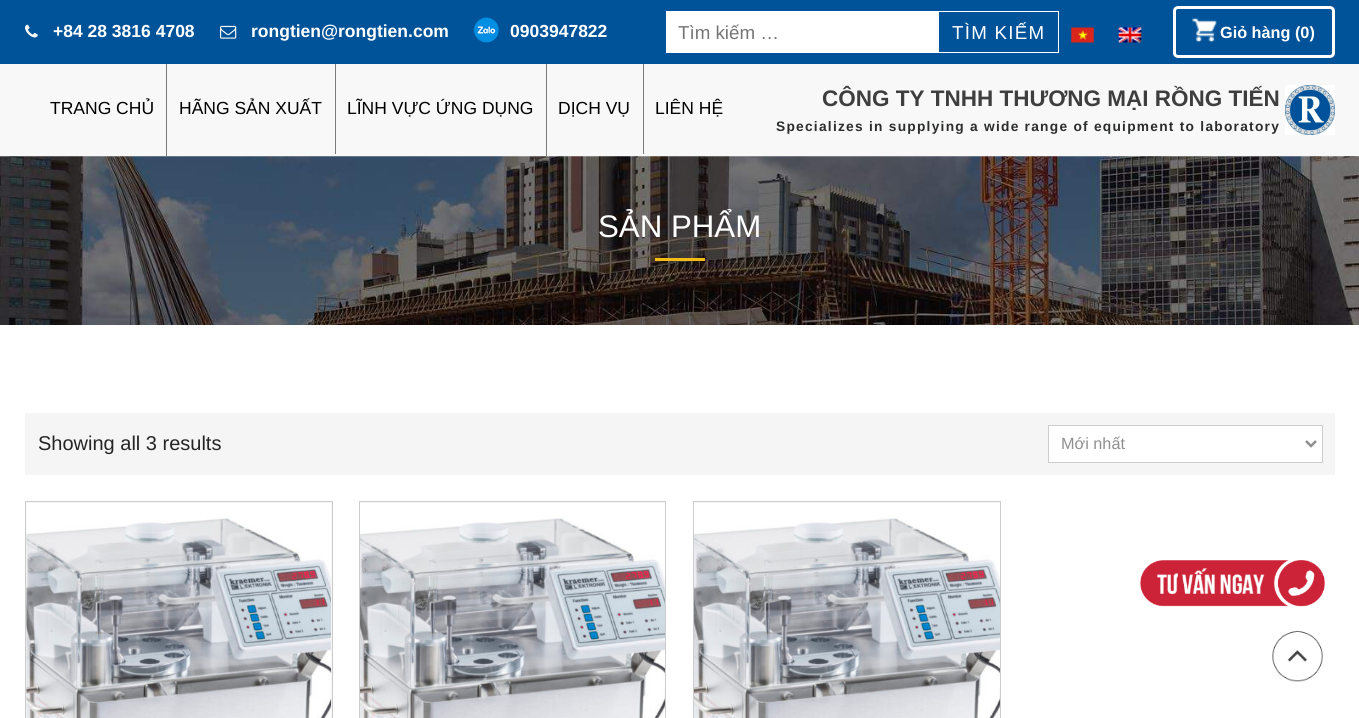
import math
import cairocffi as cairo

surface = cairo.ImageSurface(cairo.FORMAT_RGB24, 1359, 718)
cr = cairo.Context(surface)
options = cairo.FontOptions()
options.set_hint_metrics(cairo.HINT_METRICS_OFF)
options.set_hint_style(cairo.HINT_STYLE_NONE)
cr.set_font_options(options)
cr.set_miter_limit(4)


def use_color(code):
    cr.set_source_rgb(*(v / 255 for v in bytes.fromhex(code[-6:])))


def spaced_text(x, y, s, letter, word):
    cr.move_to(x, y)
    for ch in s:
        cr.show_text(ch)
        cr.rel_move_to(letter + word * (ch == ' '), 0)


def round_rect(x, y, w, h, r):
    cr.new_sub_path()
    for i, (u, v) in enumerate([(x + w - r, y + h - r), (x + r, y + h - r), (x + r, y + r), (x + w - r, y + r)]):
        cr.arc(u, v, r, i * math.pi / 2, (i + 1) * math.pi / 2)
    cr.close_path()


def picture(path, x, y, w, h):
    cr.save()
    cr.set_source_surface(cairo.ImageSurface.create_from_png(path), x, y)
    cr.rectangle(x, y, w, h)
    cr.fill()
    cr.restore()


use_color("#ffffff")
cr.paint()
use_color("#005399")
cr.rectangle(0, 0, 1359, 64)
cr.fill()
picture("img1.png", 25, 24, 13, 14)
cr.select_font_face("Liberation Sans", cairo.FONT_SLANT_NORMAL, cairo.FONT_WEIGHT_BOLD)
cr.set_font_size(17.5)
use_color("#ffffff")
cr.move_to(53, 37)
cr.show_text("+84 28 3816 4708")
picture("img2.png", 220, 25, 17, 14)
cr.move_to(251, 37)
cr.show_text("rongtien@rongtien.com")
picture("img3.png", 473, 17, 26, 26)
cr.move_to(510, 37)
cr.show_text("0903947822")
cr.rectangle(666, 11, 272, 42)
cr.fill()
cr.select_font_face("Liberation Sans")
cr.set_font_size(18.75)
use_color("#757575")
cr.move_to(678, 39)
cr.show_text("Tìm kiếm …")
cr.rectangle(938.5, 11.5, 120, 41)
use_color("#ffffff")
cr.set_line_width(1)
cr.stroke()
spaced_text(952, 39, "TÌM KIẾM", 1.25, 0)
picture("img4.png", 1071, 27, 23, 16)
picture("img5.png", 1118, 27, 24, 16)
round_rect(1174.5, 7.5, 159, 49, 3.5)
cr.set_line_width(3)
cr.stroke()
picture("img6.png", 1192, 18, 25, 24)
cr.select_font_face("Liberation Sans", cairo.FONT_SLANT_NORMAL, cairo.FONT_WEIGHT_BOLD)
cr.set_font_size(16.25)
cr.move_to(1220, 38)
cr.show_text("Giỏ hàng (0)")
use_color("#f8f8f8")
cr.rectangle(0, 64, 1359, 92)
cr.fill()
cr.select_font_face("Liberation Sans")
cr.set_font_size(17.5)
use_color("#000000")
cr.move_to(50, 114)
cr.show_text("TRANG CHỦ")
use_color("#7b7b7b")
cr.rectangle(166, 64, 1, 92)
cr.fill()
use_color("#000000")
cr.move_to(179, 114)
cr.show_text("HÃNG SẢN XUẤT")
use_color("#7b7b7b")
cr.rectangle(335, 64, 1, 90)
cr.fill()
use_color("#000000")
cr.move_to(347, 114)
cr.show_text("LĨNH VỰC ỨNG DỤNG")
use_color("#7b7b7b")
cr.rectangle(546, 64, 1, 92)
cr.fill()
use_color("#000000")
cr.move_to(558, 114)
cr.show_text("DỊCH VỤ")
use_color("#7b7b7b")
cr.rectangle(643, 64, 1, 90)
cr.fill()
use_color("#000000")
cr.move_to(655, 114)
cr.show_text("LIÊN HỆ")
cr.select_font_face("Liberation Sans", cairo.FONT_SLANT_NORMAL, cairo.FONT_WEIGHT_BOLD)
cr.set_font_size(22.5)
use_color("#3e3e3e")
cr.move_to(822, 106)
cr.show_text("CÔNG TY TNHH THƯƠNG MẠI RỒNG TIẾN")
cr.set_font_size(13.75)
use_color("#2c2d2d")
spaced_text(776, 131, "Specializes in supplying a wide range of equipment to laboratory", 1.25, 0)
picture("img7.png", 1285, 85, 50, 50)
picture("img8.png", 0, 156, 1359, 169)
cr.select_font_face("Liberation Sans")
cr.set_font_size(31.25)
use_color("#ffffff")
cr.move_to(598, 237)
cr.show_text("SẢN PHẨM")
use_color("#f4bc16")
cr.rectangle(655, 258, 50, 3)
cr.fill()
use_color("#f5f5f5")
cr.rectangle(25, 413, 1310, 62)
cr.fill()
cr.set_font_size(20)
use_color("#252525")
cr.move_to(38, 450)
cr.show_text("Showing all 3 results")
use_color("#ffffff")
cr.rectangle(1048.5, 425.5, 274, 37)
cr.fill_preserve()
use_color("#cccccc")
cr.set_line_width(1)
cr.stroke()
cr.new_path()
cr.move_to(1306, 441)
cr.line_to(1311, 446)
cr.line_to(1316, 441)
use_color("#8f8f8f")
cr.set_line_width(2.5)
cr.stroke()
cr.set_font_size(16.25)
cr.move_to(1061, 449)
cr.show_text("Mới nhất")
use_color("#f5f5f5")
cr.rectangle(25.5, 501.5, 307, 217)
cr.fill_preserve()
use_color("#cccccc")
cr.set_line_width(1)
cr.stroke()
picture("img9.png", 26, 503, 306, 215)
use_color("#f5f5f5")
cr.rectangle(360, 502, 305, 1)
cr.fill()
cr.rectangle(359.5, 501.5, 306, 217)
use_color("#cccccc")
cr.stroke()
picture("img10.png", 360, 503, 305, 215)
use_color("#f5f5f5")
cr.rectangle(694, 502, 306, 1)
cr.fill()
cr.rectangle(693.5, 501.5, 307, 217)
use_color("#cccccc")
cr.stroke()
picture("img11.png", 693, 503, 307, 215)
picture("img12.png", 1272, 631, 51, 51)
picture("img13.png", 1140, 560, 185, 47)
surface.write_to_png("result.png")
